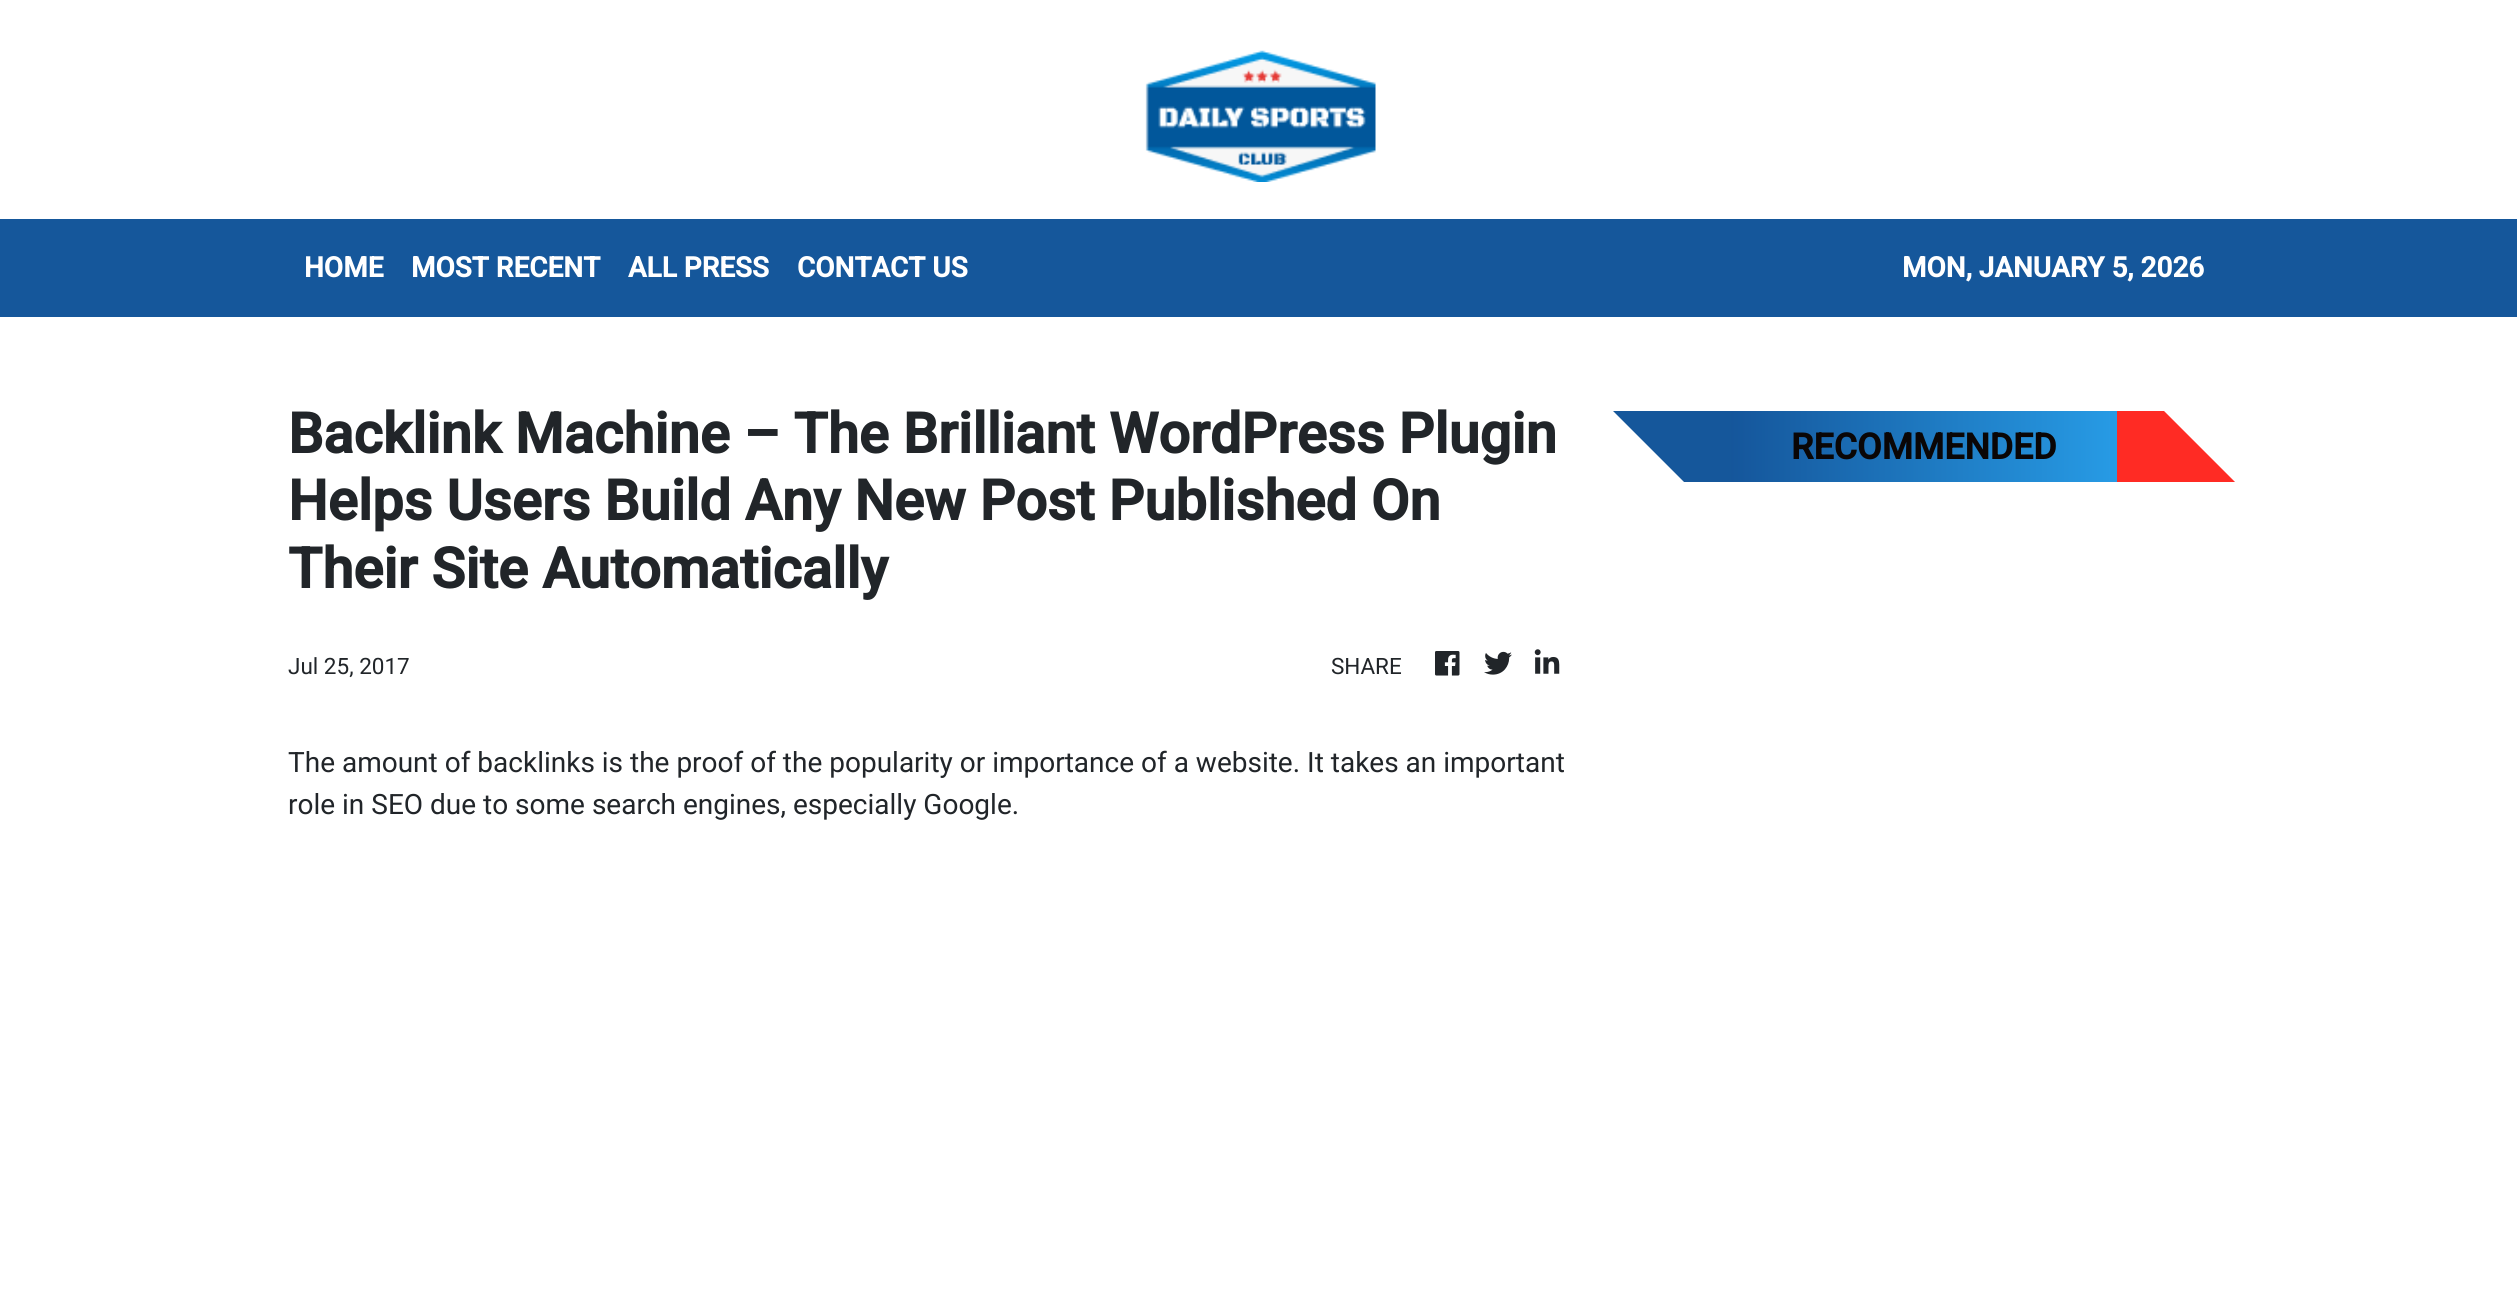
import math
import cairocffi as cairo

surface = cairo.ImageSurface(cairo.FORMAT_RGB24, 2517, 1291)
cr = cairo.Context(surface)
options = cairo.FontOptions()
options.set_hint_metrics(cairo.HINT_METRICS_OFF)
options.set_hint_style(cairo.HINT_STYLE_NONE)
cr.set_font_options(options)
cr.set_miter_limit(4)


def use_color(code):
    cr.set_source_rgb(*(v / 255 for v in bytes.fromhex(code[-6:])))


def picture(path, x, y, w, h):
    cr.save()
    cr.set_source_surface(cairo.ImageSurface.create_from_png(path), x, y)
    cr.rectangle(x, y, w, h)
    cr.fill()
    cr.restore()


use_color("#ffffff")
cr.paint()
picture("img1.png", 1145, 50, 231, 132)
use_color("#15579b")
cr.rectangle(0, 219, 2517, 98)
cr.fill()
cr.select_font_face("Roboto", cairo.FONT_SLANT_NORMAL, cairo.FONT_WEIGHT_BOLD)
cr.set_font_size(28)
use_color("#ffffff")
cr.move_to(304, 277)
cr.show_text("HOME")
cr.move_to(411, 277)
cr.show_text("MOST RECENT")
cr.move_to(628, 277)
cr.show_text("ALL PRESS")
cr.move_to(797, 277)
cr.show_text("CONTACT US")
cr.move_to(1902, 277)
cr.show_text("MON, JANUARY 5, 2026")
cr.set_font_size(56)
use_color("#212529")
cr.move_to(288, 453)
cr.show_text("Backlink Machine – The Brilliant WordPress Plugin")
cr.move_to(288, 520)
cr.show_text("Helps Users Build Any New Post Published On")
cr.move_to(288, 588)
cr.show_text("Their Site Automatically")
cr.select_font_face("Roboto")
cr.set_font_size(22.5)
cr.move_to(288, 674)
cr.show_text("Jul 25, 2017")
cr.move_to(1331, 674)
cr.show_text("SHARE")
picture("img2.png", 1435, 651, 25, 25)
picture("img3.png", 1484, 651, 28, 24)
picture("img4.png", 1534, 649, 26, 25)
cr.set_font_size(28)
cr.move_to(288, 772)
cr.show_text("The amount of backlinks is the proof of the popularity or importance of a website. It takes an important")
cr.move_to(288, 814)
cr.show_text("role in SEO due to some search engines, especially Google.")
gradient = cairo.LinearGradient(1648, 447, 2200, 447)
gradient.add_color_stop_rgba(0.15, 0.082, 0.341, 0.608, 1)
gradient.add_color_stop_rgba(0.15, 0.082, 0.337, 0.608, 1)
gradient.add_color_stop_rgba(0.85, 0.153, 0.608, 0.898, 1)
gradient.add_color_stop_rgba(0.85, 1, 0.169, 0.141, 1)
cr.set_source(gradient)
cr.new_path()
cr.move_to(1613, 411)
cr.line_to(2164, 411)
cr.line_to(2235, 482)
cr.line_to(1684, 482)
cr.close_path()
cr.fill()
cr.select_font_face("Roboto", cairo.FONT_SLANT_NORMAL, cairo.FONT_WEIGHT_BOLD)
cr.set_font_size(35.75)
use_color("#0a0606")
cr.move_to(1791, 459)
cr.show_text("RECOMMENDED")
surface.write_to_png("result.png")
